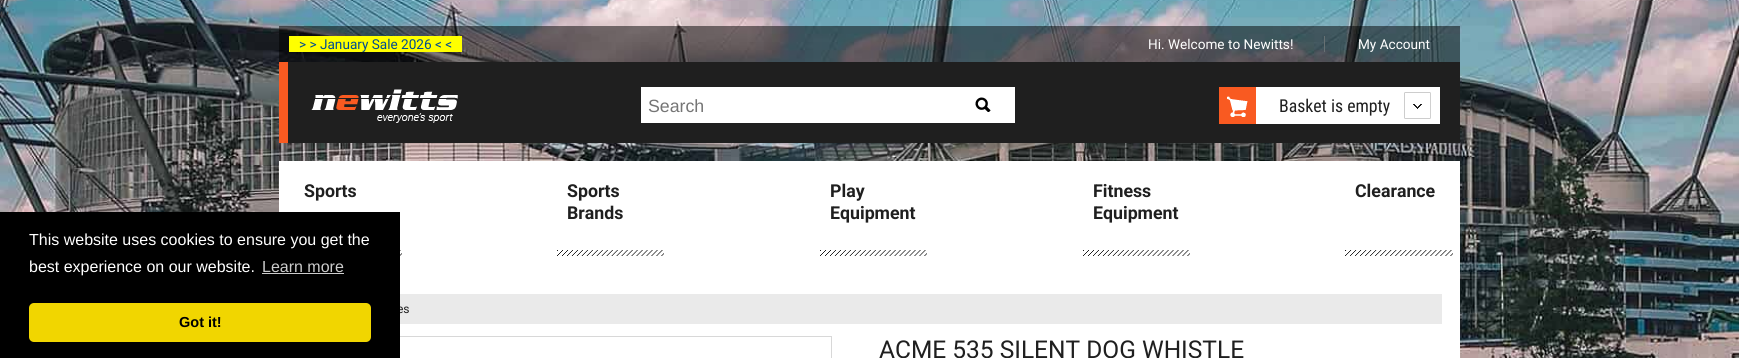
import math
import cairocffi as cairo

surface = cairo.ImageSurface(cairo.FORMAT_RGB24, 1739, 358)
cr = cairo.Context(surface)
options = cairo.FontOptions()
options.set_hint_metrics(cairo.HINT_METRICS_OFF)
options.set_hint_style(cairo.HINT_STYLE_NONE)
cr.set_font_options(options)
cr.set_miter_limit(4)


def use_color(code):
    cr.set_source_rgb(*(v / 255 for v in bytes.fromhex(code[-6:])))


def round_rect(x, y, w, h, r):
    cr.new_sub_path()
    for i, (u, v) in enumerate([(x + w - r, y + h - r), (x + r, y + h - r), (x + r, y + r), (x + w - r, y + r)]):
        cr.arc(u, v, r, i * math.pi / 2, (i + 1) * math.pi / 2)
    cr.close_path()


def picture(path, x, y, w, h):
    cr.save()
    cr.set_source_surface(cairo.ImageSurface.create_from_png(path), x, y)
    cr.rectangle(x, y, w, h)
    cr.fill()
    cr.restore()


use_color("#ffffff")
cr.paint()
picture("img1.png", 0, 0, 1739, 358)
cr.select_font_face("Roboto")
cr.set_font_size(13.6)
use_color("#474747")
cr.move_to(0, 13)
cr.show_text("; ;")
use_color("#ffffff")
cr.rectangle(279, 161, 1181, 197)
cr.fill()
use_color("#eaeaea")
cr.rectangle(400, 294, 1042, 30)
cr.fill()
cr.set_font_size(12)
use_color("#1f1f1f")
cr.move_to(397, 313)
cr.show_text("es")
cr.rectangle(297.5, 336.5, 534, 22)
use_color("#d8d8d8")
cr.set_line_width(1)
cr.stroke()
use_color("#000000")
cr.rectangle(0, 212, 400, 146)
cr.fill()
cr.select_font_face("Liberation Sans")
cr.set_font_size(16)
use_color("#ffffff")
cr.move_to(29, 245)
cr.show_text("This website uses cookies to ensure you get the")
cr.move_to(29, 272)
cr.show_text("best experience on our website.")
use_color("#cccccc")
cr.move_to(262, 272)
cr.show_text("Learn more")
cr.rectangle(262, 273, 82, 1)
cr.fill()
use_color("#f1d600")
round_rect(29, 303, 342, 39, 5)
cr.fill()
cr.select_font_face("Liberation Sans", cairo.FONT_SLANT_NORMAL, cairo.FONT_WEIGHT_BOLD)
cr.set_font_size(14.5)
use_color("#000000")
cr.move_to(179, 327)
cr.show_text("Got it!")
cr.set_source_rgba(0, 0, 0, 0.5)
cr.rectangle(279, 26, 1181, 36)
cr.fill()
use_color("#ffff00")
cr.rectangle(289, 36, 173, 16)
cr.fill()
cr.select_font_face("Roboto")
cr.set_font_size(13.6)
use_color("#004b91")
cr.move_to(299, 49)
cr.show_text("> > January Sale 2026 < <")
use_color("#677173")
cr.rectangle(1324, 36, 1, 16)
cr.fill()
use_color("#ffffff")
cr.move_to(1148, 49)
cr.show_text("Hi. Welcome to Newitts!")
cr.move_to(1358, 49)
cr.show_text("My Account")
use_color("#1f1f1f")
cr.rectangle(288, 62, 1172, 81)
cr.fill()
use_color("#f95a21")
cr.rectangle(279, 62, 9, 81)
cr.fill()
picture("img2.png", 311, 89, 147, 35)
use_color("#ffffff")
cr.rectangle(641, 87, 374, 36)
cr.fill()
cr.select_font_face("Liberation Sans")
cr.set_font_size(17.75)
use_color("#757575")
cr.move_to(648, 112)
cr.show_text("Search")
picture("img3.png", 975, 97, 16, 15)
use_color("#ffffff")
cr.rectangle(1227, 87, 213, 37)
cr.fill()
picture("img4.png", 1229, 96, 16, 21)
picture("img5.png", 1219, 87, 37, 37)
picture("img6.png", 1404, 92, 27, 27)
cr.select_font_face("Roboto Condensed")
use_color("#1f1f1f")
cr.move_to(1279, 112)
cr.show_text("Basket is empty")
picture("img7.png", 400, 250, 2, 6)
cr.select_font_face("Roboto", cairo.FONT_SLANT_NORMAL, cairo.FONT_WEIGHT_BOLD)
cr.move_to(304, 197)
cr.show_text("Sports")
picture("img8.png", 557, 250, 107, 6)
cr.move_to(567, 197)
cr.show_text("Sports")
cr.move_to(567, 219)
cr.show_text("Brands")
picture("img8.png", 820, 250, 107, 6)
cr.move_to(830, 197)
cr.show_text("Play")
cr.move_to(830, 219)
cr.show_text("Equipment")
picture("img8.png", 1083, 250, 107, 6)
cr.move_to(1093, 197)
cr.show_text("Fitness")
cr.move_to(1093, 219)
cr.show_text("Equipment")
picture("img9.png", 1345, 250, 108, 6)
cr.move_to(1355, 197)
cr.show_text("Clearance")
cr.select_font_face("Roboto")
cr.set_font_size(24.5)
cr.move_to(879, 358)
cr.show_text("ACME 535 SILENT DOG WHISTLE")
surface.write_to_png("result.png")
